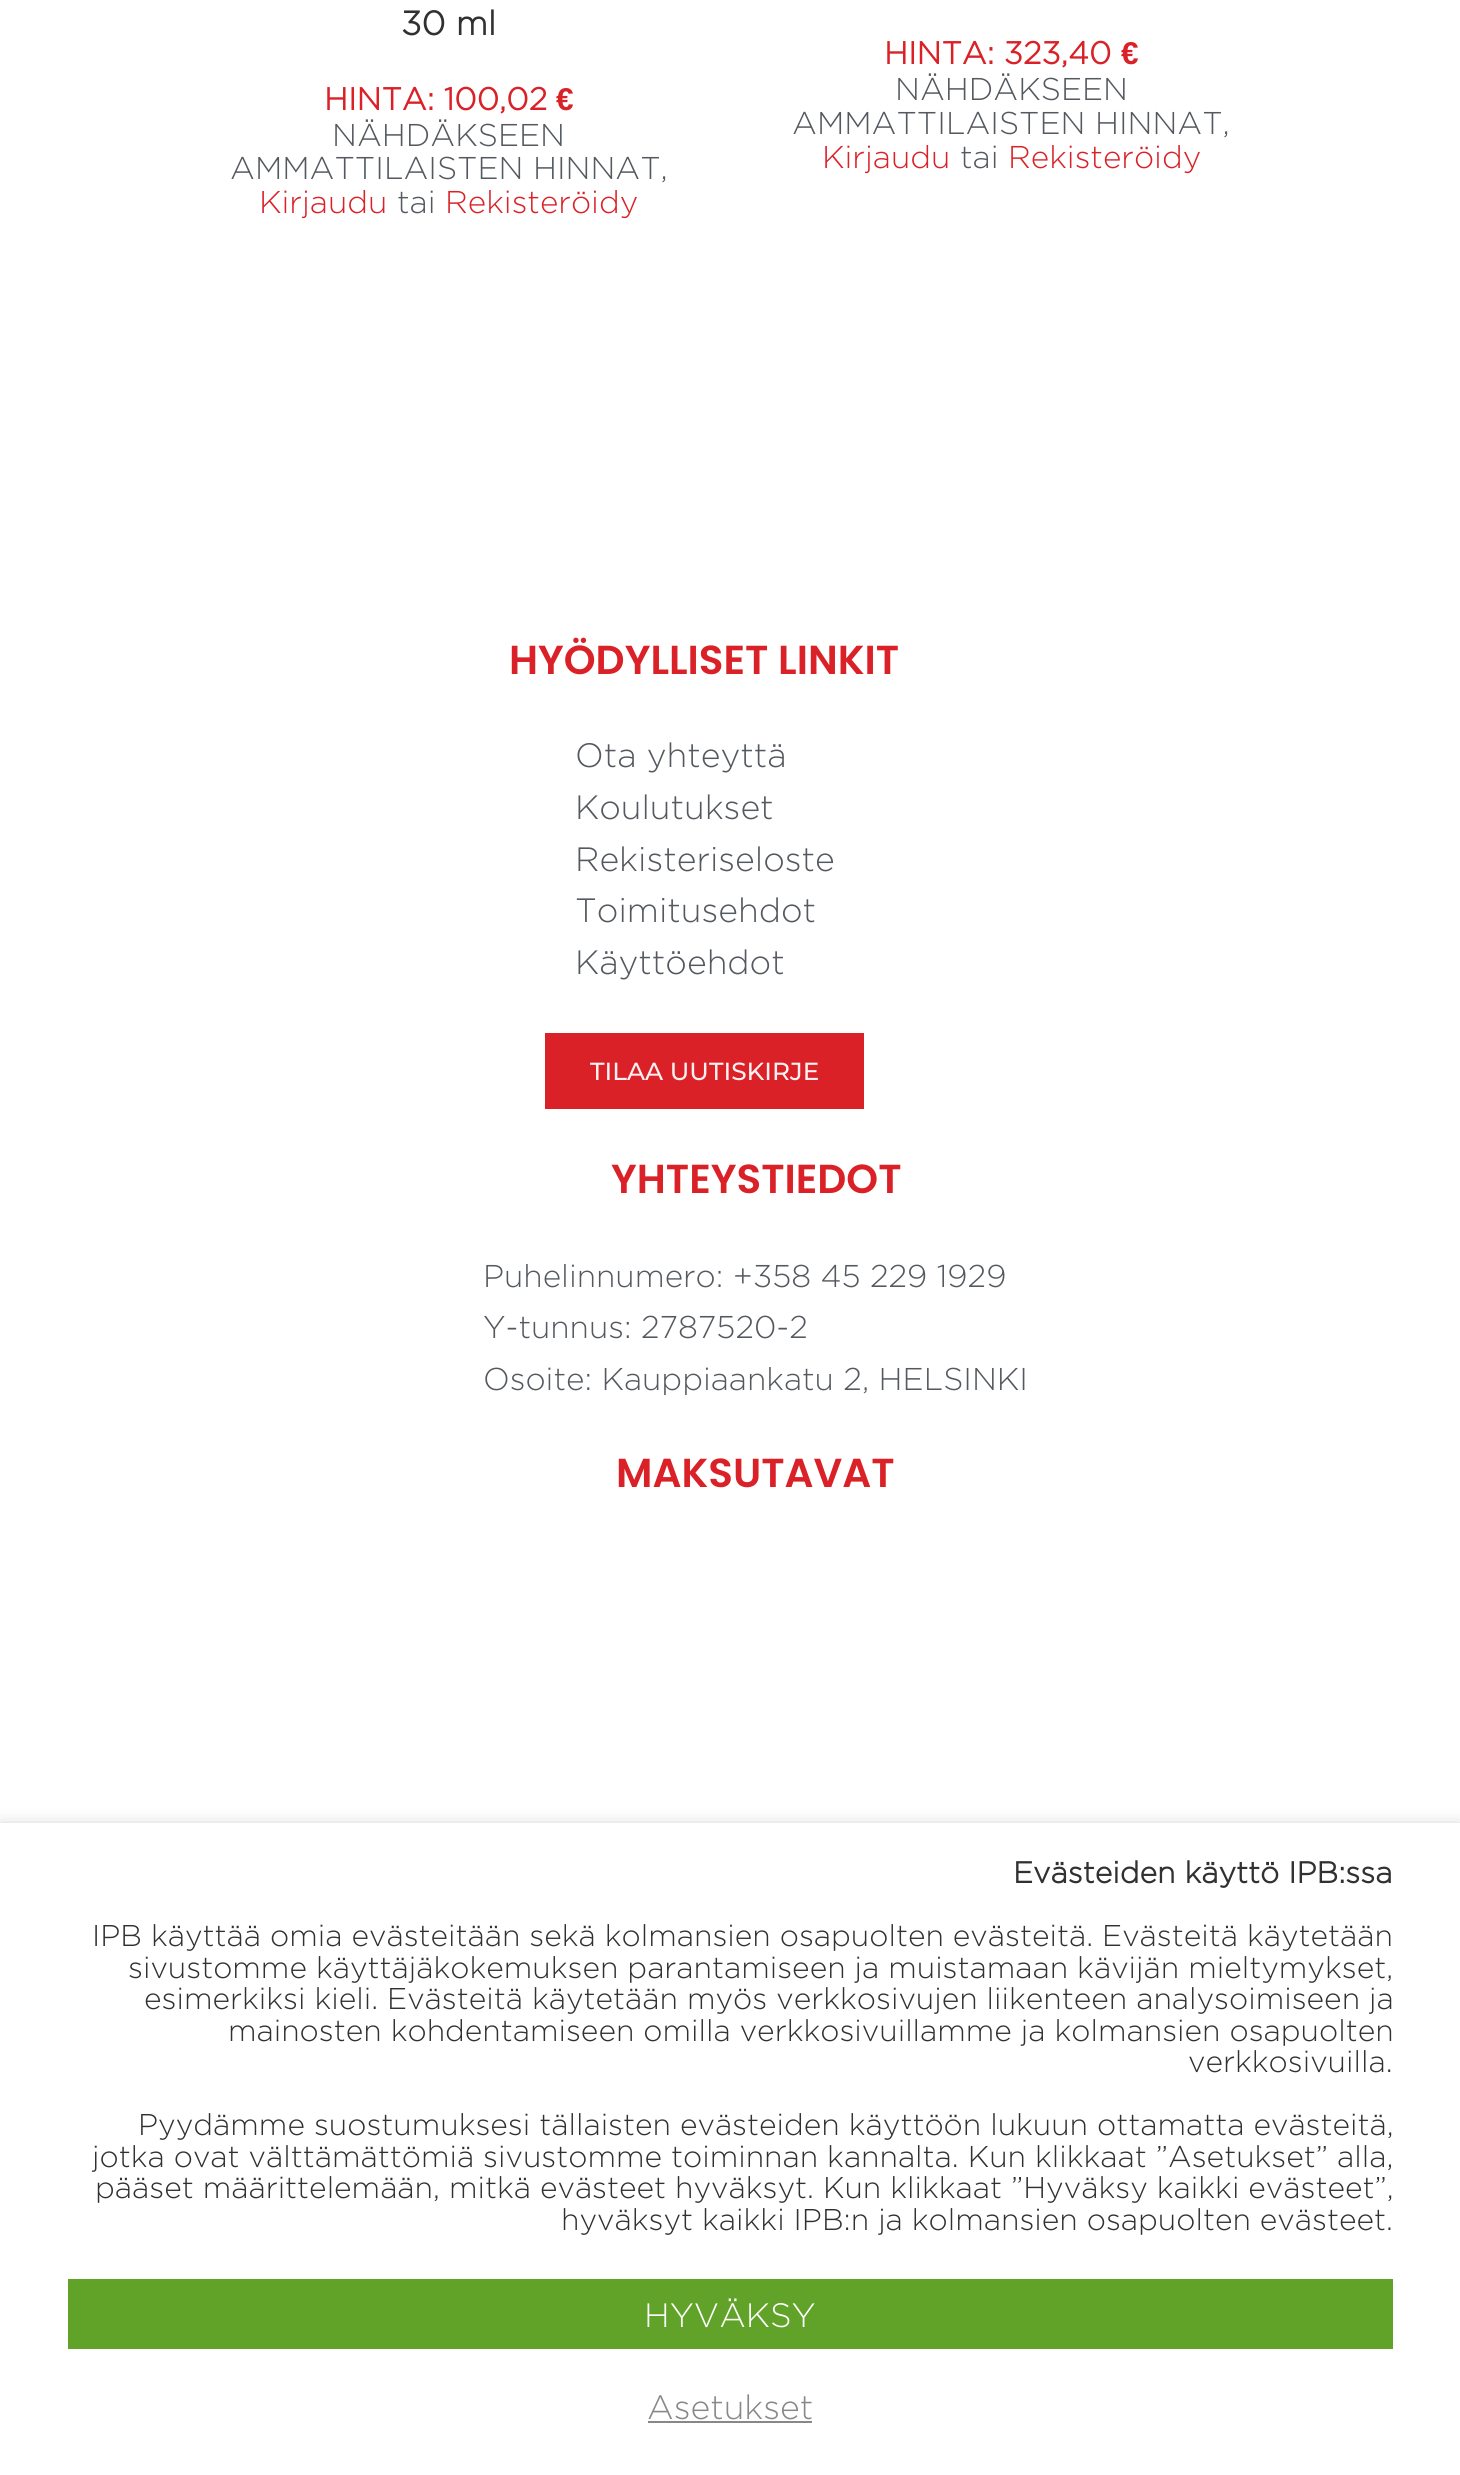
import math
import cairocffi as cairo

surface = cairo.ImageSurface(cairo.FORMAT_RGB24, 1460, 2475)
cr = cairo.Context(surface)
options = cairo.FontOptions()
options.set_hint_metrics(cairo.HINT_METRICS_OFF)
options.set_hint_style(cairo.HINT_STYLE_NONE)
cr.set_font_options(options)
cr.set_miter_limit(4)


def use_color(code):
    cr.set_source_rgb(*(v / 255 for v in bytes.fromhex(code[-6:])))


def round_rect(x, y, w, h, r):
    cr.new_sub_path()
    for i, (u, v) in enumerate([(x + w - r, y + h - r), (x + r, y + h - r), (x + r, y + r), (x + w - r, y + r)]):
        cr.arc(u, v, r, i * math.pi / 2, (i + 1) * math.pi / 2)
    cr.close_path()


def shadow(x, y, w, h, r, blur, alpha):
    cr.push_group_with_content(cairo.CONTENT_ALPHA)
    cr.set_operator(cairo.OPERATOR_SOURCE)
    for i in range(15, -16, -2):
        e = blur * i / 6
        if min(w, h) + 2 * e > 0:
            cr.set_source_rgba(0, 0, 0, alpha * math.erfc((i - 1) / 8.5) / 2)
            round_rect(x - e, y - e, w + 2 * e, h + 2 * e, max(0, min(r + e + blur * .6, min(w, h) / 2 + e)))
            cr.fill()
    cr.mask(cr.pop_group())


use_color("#ffffff")
cr.paint()
cr.select_font_face("Gotham", cairo.FONT_SLANT_NORMAL, cairo.FONT_WEIGHT_BOLD)
cr.set_font_size(33.75)
use_color("#313131")
cr.move_to(401, 35)
cr.show_text("30 ml")
cr.set_font_size(31.5)
use_color("#da2127")
cr.move_to(324, 110)
cr.show_text("HINTA: 100,02")
cr.select_font_face("Liberation Sans", cairo.FONT_SLANT_NORMAL, cairo.FONT_WEIGHT_BOLD)
cr.move_to(556, 110)
cr.show_text("€")
cr.select_font_face("Gotham Light")
use_color("#54595f")
cr.move_to(332, 146)
cr.show_text("NÄHDÄKSEEN")
cr.move_to(230, 179)
cr.show_text("AMMATTILAISTEN HINNAT,")
use_color("#da2127")
cr.move_to(259, 213)
cr.show_text("Kirjaudu")
use_color("#54595f")
cr.move_to(397, 213)
cr.show_text("tai")
use_color("#da2127")
cr.move_to(445, 213)
cr.show_text("Rekisteröidy")
cr.select_font_face("Gotham", cairo.FONT_SLANT_NORMAL, cairo.FONT_WEIGHT_BOLD)
cr.move_to(884, 64)
cr.show_text("HINTA: 323,40")
cr.select_font_face("Liberation Sans", cairo.FONT_SLANT_NORMAL, cairo.FONT_WEIGHT_BOLD)
cr.move_to(1121, 64)
cr.show_text("€")
cr.select_font_face("Gotham Light")
use_color("#54595f")
cr.move_to(895, 100)
cr.show_text("NÄHDÄKSEEN")
cr.move_to(792, 134)
cr.show_text("AMMATTILAISTEN HINNAT,")
use_color("#da2127")
cr.move_to(822, 168)
cr.show_text("Kirjaudu")
use_color("#54595f")
cr.move_to(960, 168)
cr.show_text("tai")
use_color("#da2127")
cr.move_to(1008, 168)
cr.show_text("Rekisteröidy")
cr.select_font_face("Poppins SemiBold")
cr.set_font_size(40.5)
cr.move_to(509, 674)
cr.show_text("HYÖDYLLISET LINKIT")
cr.select_font_face("Gotham Light")
cr.set_font_size(33.75)
use_color("#54595f")
cr.move_to(575, 767)
cr.show_text("Ota yhteyttä")
cr.move_to(575, 819)
cr.show_text("Koulutukset")
cr.move_to(575, 871)
cr.show_text("Rekisteriseloste")
cr.move_to(575, 922)
cr.show_text("Toimitusehdot")
cr.move_to(575, 974)
cr.show_text("Käyttöehdot")
use_color("#da2127")
cr.rectangle(545, 1033, 319, 76)
cr.fill()
cr.select_font_face("Montserrat Medium")
cr.set_font_size(24.75)
use_color("#fff0f1")
cr.move_to(590, 1080)
cr.show_text("TILAA UUTISKIRJE")
cr.select_font_face("Poppins SemiBold")
cr.set_font_size(40.5)
use_color("#da2127")
cr.move_to(611, 1193)
cr.show_text("YHTEYSTIEDOT")
cr.select_font_face("Gotham Light")
cr.set_font_size(31.5)
use_color("#54595f")
cr.move_to(483, 1287)
cr.show_text("Puhelinnumero: +358 45 229 1929")
cr.move_to(483, 1338)
cr.show_text("Y-tunnus: 2787520-2")
cr.move_to(483, 1390)
cr.show_text("Osoite: Kauppiaankatu 2, HELSINKI")
cr.select_font_face("Poppins SemiBold")
cr.set_font_size(40.5)
use_color("#da2127")
cr.move_to(616, 1487)
cr.show_text("MAKSUTAVAT")
use_color("#000000")
shadow(0, 1834, 1460, 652, 0, 11, 0.5)
use_color("#ffffff")
cr.rectangle(0, 1823, 1460, 652)
cr.fill()
cr.select_font_face("Gotham", cairo.FONT_SLANT_NORMAL, cairo.FONT_WEIGHT_BOLD)
cr.set_font_size(30)
use_color("#313131")
cr.move_to(1013, 1883)
cr.show_text("Evästeiden käyttö IPB:ssa")
cr.select_font_face("Gotham Light")
cr.move_to(92, 1946)
cr.show_text("IPB käyttää omia evästeitään sekä kolmansien osapuolten evästeitä. Evästeitä käytetään")
cr.move_to(128, 1978)
cr.show_text("sivustomme käyttäjäkokemuksen parantamiseen ja muistamaan kävijän mieltymykset,")
cr.move_to(144, 2009)
cr.show_text("esimerkiksi kieli. Evästeitä käytetään myös verkkosivujen liikenteen analysoimiseen ja")
cr.move_to(228, 2041)
cr.show_text("mainosten kohdentamiseen omilla verkkosivuillamme ja kolmansien osapuolten")
cr.move_to(1188, 2072)
cr.show_text("verkkosivuilla.")
cr.move_to(138, 2135)
cr.show_text("Pyydämme suostumuksesi tällaisten evästeiden käyttöön lukuun ottamatta evästeitä,")
cr.move_to(92, 2167)
cr.show_text("jotka ovat välttämättömiä sivustomme toiminnan kannalta. Kun klikkaat ”Asetukset” alla,")
cr.move_to(95, 2198)
cr.show_text("pääset määrittelemään, mitkä evästeet hyväksyt. Kun klikkaat ”Hyväksy kaikki evästeet”,")
cr.move_to(561, 2230)
cr.show_text("hyväksyt kaikki IPB:n ja kolmansien osapuolten evästeet.")
use_color("#61a229")
cr.rectangle(68, 2279, 1325, 70)
cr.fill()
cr.set_font_size(33.75)
use_color("#ffffff")
cr.move_to(644, 2327)
cr.show_text("HYVÄKSY")
use_color("#898888")
cr.move_to(647, 2419)
cr.show_text("Asetukset")
cr.rectangle(648, 2421, 164, 2)
cr.fill()
surface.write_to_png("result.png")
